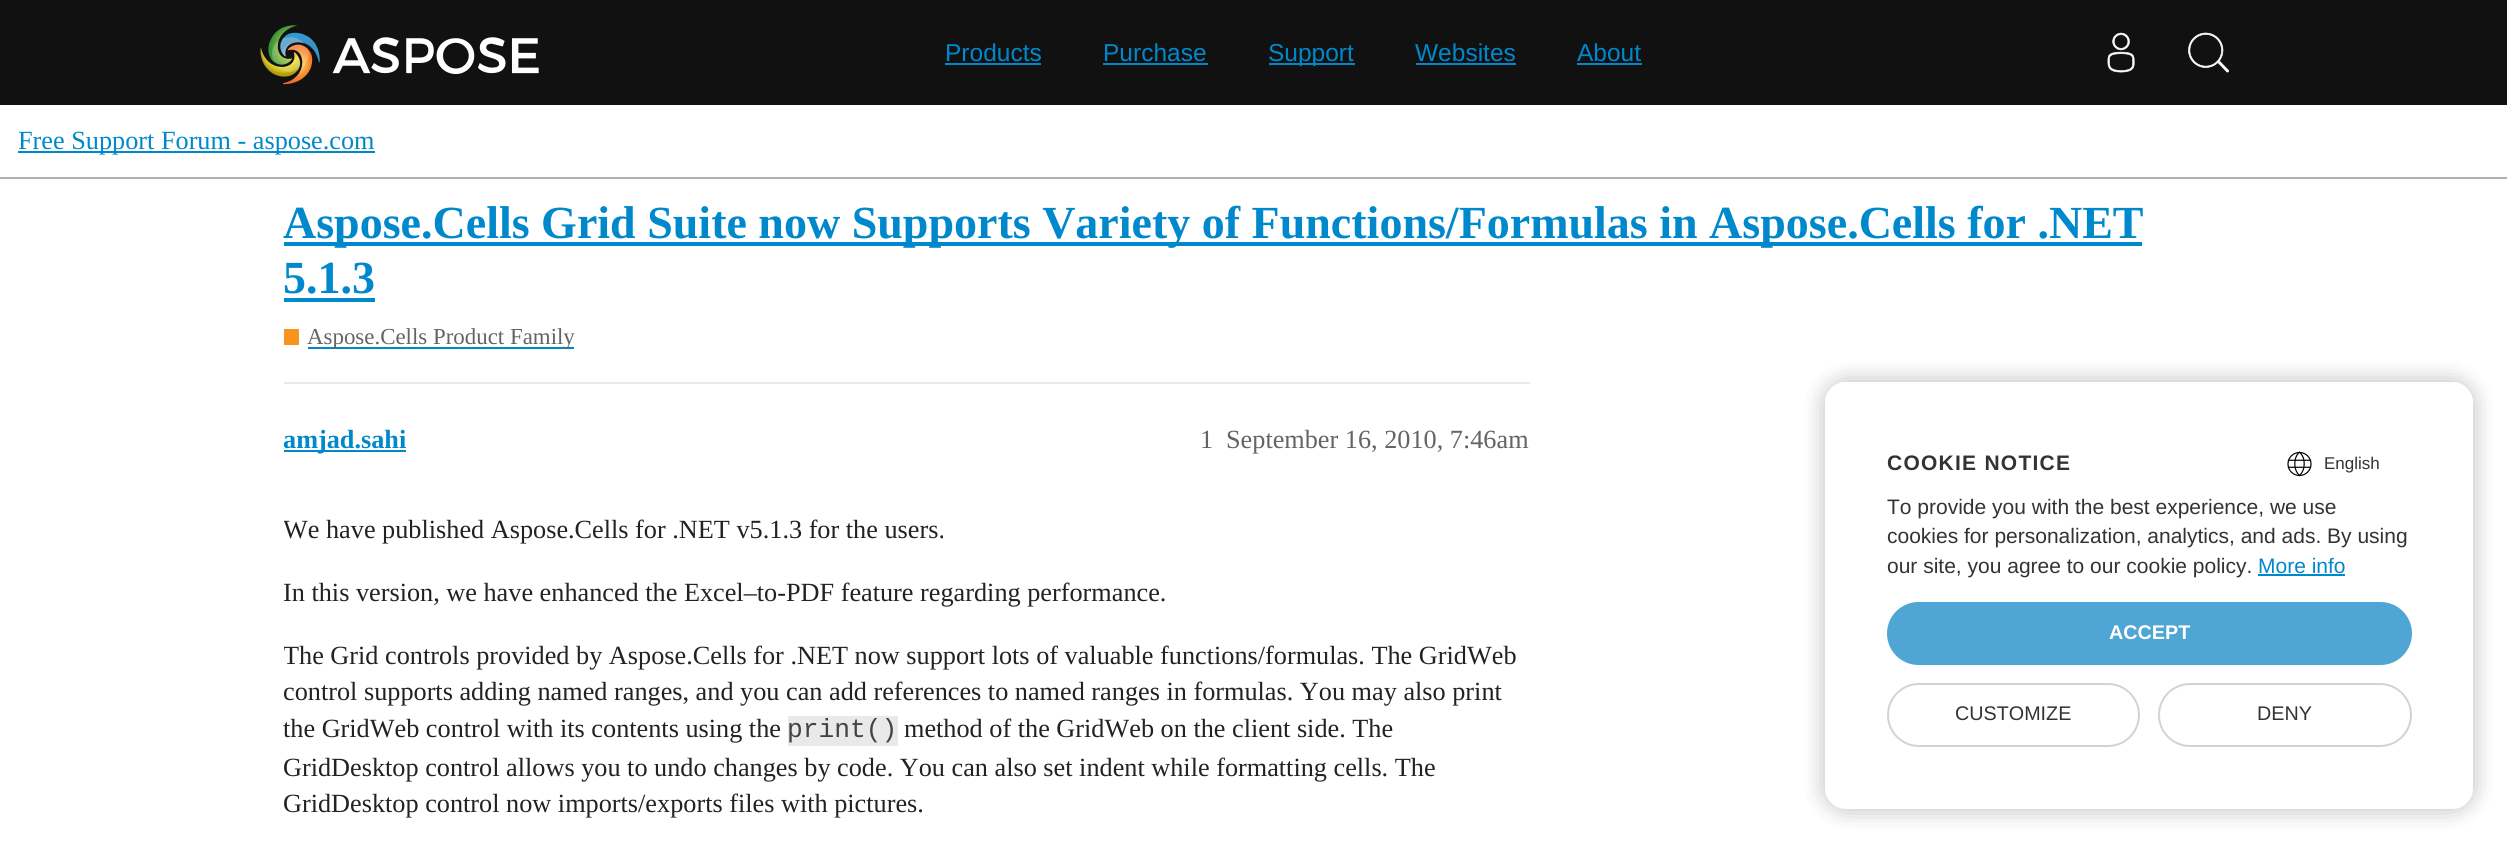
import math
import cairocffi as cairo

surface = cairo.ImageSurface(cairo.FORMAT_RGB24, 2507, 842)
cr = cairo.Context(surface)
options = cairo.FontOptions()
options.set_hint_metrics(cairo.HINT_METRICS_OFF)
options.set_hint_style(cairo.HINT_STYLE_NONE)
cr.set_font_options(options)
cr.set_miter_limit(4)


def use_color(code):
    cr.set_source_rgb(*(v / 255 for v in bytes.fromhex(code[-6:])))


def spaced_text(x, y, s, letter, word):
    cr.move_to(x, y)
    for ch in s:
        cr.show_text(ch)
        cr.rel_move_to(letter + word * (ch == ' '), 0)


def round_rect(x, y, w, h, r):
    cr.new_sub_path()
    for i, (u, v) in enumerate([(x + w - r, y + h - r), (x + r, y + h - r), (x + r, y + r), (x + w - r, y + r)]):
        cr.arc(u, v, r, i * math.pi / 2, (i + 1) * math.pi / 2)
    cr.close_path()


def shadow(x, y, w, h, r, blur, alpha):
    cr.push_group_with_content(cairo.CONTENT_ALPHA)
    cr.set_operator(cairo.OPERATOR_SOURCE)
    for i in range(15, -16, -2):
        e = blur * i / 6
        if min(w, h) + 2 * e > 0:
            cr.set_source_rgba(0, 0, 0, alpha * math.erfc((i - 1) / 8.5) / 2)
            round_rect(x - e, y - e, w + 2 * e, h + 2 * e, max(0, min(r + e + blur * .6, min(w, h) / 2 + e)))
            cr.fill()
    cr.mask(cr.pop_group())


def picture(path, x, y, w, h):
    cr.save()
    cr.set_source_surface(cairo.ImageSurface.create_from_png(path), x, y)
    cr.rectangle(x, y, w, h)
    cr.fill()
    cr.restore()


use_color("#ffffff")
cr.paint()
use_color("#111111")
cr.rectangle(0, 0, 2507, 105)
cr.fill()
picture("img1.png", 260, 25, 279, 60)
cr.select_font_face("Liberation Sans")
cr.set_font_size(24.5)
use_color("#0088cc")
cr.move_to(945, 61)
cr.show_text("Products")
cr.rectangle(945, 63, 96, 2)
cr.fill()
cr.move_to(1103, 61)
cr.show_text("Purchase")
cr.rectangle(1103, 63, 105, 2)
cr.fill()
cr.rectangle(1269, 63, 86, 2)
cr.fill()
cr.move_to(1268, 61)
cr.show_text("Support")
cr.move_to(1415, 61)
cr.show_text("Websites")
cr.rectangle(1416, 63, 100, 2)
cr.fill()
cr.move_to(1577, 61)
cr.show_text("About")
cr.rectangle(1577, 63, 65, 2)
cr.fill()
picture("img2.png", 2107, 32, 28, 41)
picture("img3.png", 2188, 32, 41, 41)
use_color("#afafaf")
cr.rectangle(0, 177, 2507, 2)
cr.fill()
use_color("#0088cc")
cr.rectangle(18, 151, 357, 2)
cr.fill()
cr.select_font_face("Liberation Serif")
cr.set_font_size(26.25)
cr.move_to(18, 149)
cr.show_text("Free Support Forum - aspose.com")
cr.rectangle(284, 242, 1858, 4)
cr.fill()
cr.select_font_face("Liberation Serif", cairo.FONT_SLANT_NORMAL, cairo.FONT_WEIGHT_BOLD)
cr.set_font_size(46)
cr.move_to(283, 238)
cr.show_text("Aspose.Cells Grid Suite now Supports Variety of Functions/Formulas in Aspose.Cells for .NET")
cr.move_to(283, 293)
cr.show_text("5.1.3")
cr.rectangle(284, 298, 91, 4)
cr.fill()
use_color("#f7941d")
cr.rectangle(284, 329, 15, 16)
cr.fill()
use_color("#0088cc")
cr.rectangle(308, 347, 266, 2)
cr.fill()
cr.select_font_face("Liberation Serif")
cr.set_font_size(22.9)
use_color("#646464")
cr.move_to(307, 344)
cr.show_text("Aspose.Cells Product Family")
use_color("#e9e9e9")
cr.rectangle(284, 382, 1246, 2)
cr.fill()
use_color("#0088cc")
cr.rectangle(284, 450, 122, 2)
cr.fill()
cr.select_font_face("Liberation Serif", cairo.FONT_SLANT_NORMAL, cairo.FONT_WEIGHT_BOLD)
cr.set_font_size(26.25)
cr.move_to(283, 448)
cr.show_text("amjad.sahi")
cr.select_font_face("Liberation Serif")
use_color("#646464")
cr.move_to(1200, 448)
cr.show_text("1")
cr.move_to(1226, 448)
cr.show_text("September 16, 2010, 7:46am")
cr.save()
cr.rectangle(284, 485, 1246, 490)
cr.clip()
use_color("#222222")
cr.move_to(283, 538)
cr.show_text("We have published Aspose.Cells for .NET v5.1.3 for the users.")
cr.move_to(283, 601)
cr.show_text("In this version, we have enhanced the Excel–to-PDF feature regarding performance.")
cr.move_to(283, 664)
cr.show_text("The Grid controls provided by Aspose.Cells for .NET now support lots of valuable functions/formulas. The GridWeb")
cr.move_to(283, 700)
cr.show_text("control supports adding named ranges, and you can add references to named ranges in formulas. You may also print")
cr.restore()
use_color("#222222")
cr.move_to(283, 737)
cr.show_text("the GridWeb control with its contents using the")
use_color("#e9e9e9")
cr.rectangle(788, 716, 110, 30)
cr.fill()
cr.select_font_face("Liberation Mono")
use_color("#434343")
cr.move_to(787, 737)
cr.show_text("print()")
cr.select_font_face("Liberation Serif")
use_color("#222222")
cr.move_to(904, 737)
cr.show_text("method of the GridWeb on the client side. The")
cr.save()
cr.rectangle(284, 485, 1246, 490)
cr.clip()
cr.move_to(283, 776)
cr.show_text("GridDesktop control allows you to undo changes by code. You can also set indent while formatting cells. The")
cr.move_to(283, 812)
cr.show_text("GridDesktop control now imports/exports files with pictures.")
cr.restore()
use_color("#000000")
shadow(1825, 382, 648, 427, 21, 11.5, 0.1)
shadow(1825, 382, 648, 427, 21, 11.5, 0.1)
shadow(1825, 382, 648, 427, 21, 11.5, 0.1)
use_color("#ffffff")
round_rect(1825, 382, 648, 427, 21)
cr.fill()
cr.new_path()
cr.move_to(1846, 382)
cr.line_to(2452, 382)
cr.curve_to(2463.5, 382, 2473, 391.5, 2473, 403)
cr.line_to(2473, 485)
cr.line_to(1825, 485)
cr.line_to(1825, 403)
cr.curve_to(1825, 391.5, 1834.5, 382, 1846, 382)
cr.close_path()
cr.fill()
cr.select_font_face("Liberation Sans", cairo.FONT_SLANT_NORMAL, cairo.FONT_WEIGHT_BOLD)
cr.set_font_size(21)
use_color("#333333")
spaced_text(1887, 470, "COOKIE NOTICE", 1.25, 0)
picture("img4.png", 2287, 451, 25, 26)
cr.select_font_face("Liberation Sans")
cr.set_font_size(17)
cr.move_to(2324, 469)
cr.show_text("English")
cr.set_font_size(21)
cr.move_to(1887, 514)
cr.show_text("To provide you with the best experience, we use")
cr.move_to(1887, 543)
cr.show_text("cookies for personalization, analytics, and ads. By using")
cr.move_to(1887, 573)
cr.show_text("our site, you agree to our cookie policy.")
use_color("#0088cc")
cr.move_to(2258, 573)
cr.show_text("More info")
cr.rectangle(2258, 574, 87, 2)
cr.fill()
use_color("#4fa5d3")
round_rect(1887, 602, 525, 63, 31.5)
cr.fill()
cr.select_font_face("Liberation Sans", cairo.FONT_SLANT_NORMAL, cairo.FONT_WEIGHT_BOLD)
cr.set_font_size(19.75)
use_color("#ffffff")
cr.move_to(2109, 639)
cr.show_text("ACCEPT")
round_rect(1888, 684, 251, 62, 31)
use_color("#d3d3d3")
cr.stroke()
cr.select_font_face("Liberation Sans")
use_color("#333333")
cr.move_to(1955, 720)
cr.show_text("CUSTOMIZE")
round_rect(2159, 684, 252, 62, 31)
use_color("#d3d3d3")
cr.stroke()
use_color("#333333")
cr.move_to(2257, 720)
cr.show_text("DENY")
surface.write_to_png("result.png")
